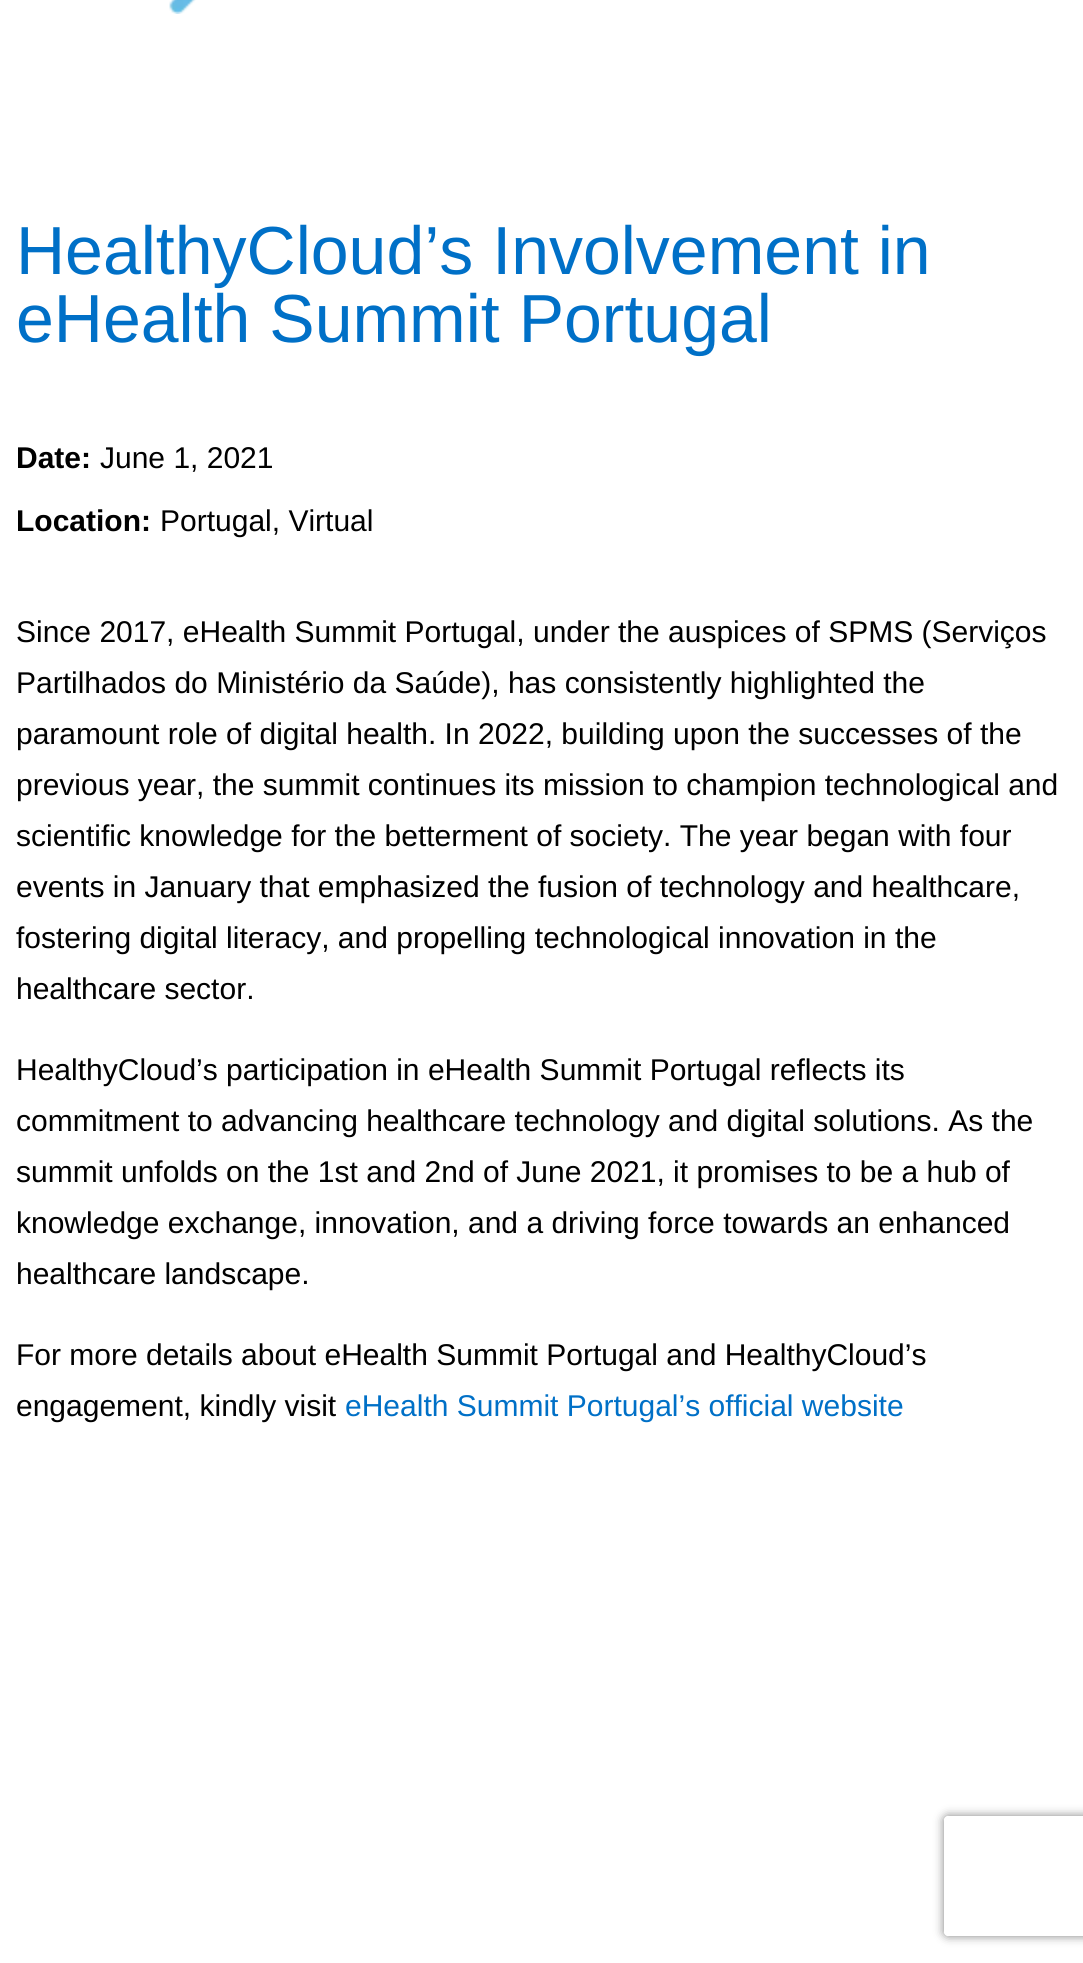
import math
import cairocffi as cairo

surface = cairo.ImageSurface(cairo.FORMAT_RGB24, 1083, 1963)
cr = cairo.Context(surface)
options = cairo.FontOptions()
options.set_hint_metrics(cairo.HINT_METRICS_OFF)
options.set_hint_style(cairo.HINT_STYLE_NONE)
cr.set_font_options(options)
cr.set_miter_limit(4)


def use_color(code):
    cr.set_source_rgb(*(v / 255 for v in bytes.fromhex(code[-6:])))


def round_rect(x, y, w, h, r):
    cr.new_sub_path()
    for i, (u, v) in enumerate([(x + w - r, y + h - r), (x + r, y + h - r), (x + r, y + r), (x + w - r, y + r)]):
        cr.arc(u, v, r, i * math.pi / 2, (i + 1) * math.pi / 2)
    cr.close_path()


def shadow(x, y, w, h, r, blur, alpha):
    cr.push_group_with_content(cairo.CONTENT_ALPHA)
    cr.set_operator(cairo.OPERATOR_SOURCE)
    for i in range(15, -16, -2):
        e = blur * i / 6
        if min(w, h) + 2 * e > 0:
            cr.set_source_rgba(0, 0, 0, alpha * math.erfc((i - 1) / 8.5) / 2)
            round_rect(x - e, y - e, w + 2 * e, h + 2 * e, max(0, min(r + e + blur * .6, min(w, h) / 2 + e)))
            cr.fill()
    cr.mask(cr.pop_group())


def picture(path, x, y, w, h):
    cr.save()
    cr.set_source_surface(cairo.ImageSurface.create_from_png(path), x, y)
    cr.rectangle(x, y, w, h)
    cr.fill()
    cr.restore()


use_color("#ffffff")
cr.paint()
picture("img1.png", 169, 0, 27, 14)
cr.select_font_face("Liberation Sans")
cr.set_font_size(68)
use_color("#0070c7")
cr.move_to(16, 274)
cr.show_text("HealthyCloud’s Involvement in")
cr.move_to(16, 342)
cr.show_text("eHealth Summit Portugal")
cr.select_font_face("Liberation Sans", cairo.FONT_SLANT_NORMAL, cairo.FONT_WEIGHT_BOLD)
cr.set_font_size(30)
use_color("#000000")
cr.move_to(16, 468)
cr.show_text("Date:")
cr.select_font_face("Liberation Sans")
cr.move_to(100, 468)
cr.show_text("June 1, 2021")
cr.select_font_face("Liberation Sans", cairo.FONT_SLANT_NORMAL, cairo.FONT_WEIGHT_BOLD)
cr.move_to(16, 531)
cr.show_text("Location:")
cr.select_font_face("Liberation Sans")
cr.move_to(160, 531)
cr.show_text("Portugal, Virtual")
cr.move_to(16, 642)
cr.show_text("Since 2017, eHealth Summit Portugal, under the auspices of SPMS (Serviços")
cr.move_to(16, 693)
cr.show_text("Partilhados do Ministério da Saúde), has consistently highlighted the")
cr.move_to(16, 744)
cr.show_text("paramount role of digital health. In 2022, building upon the successes of the")
cr.move_to(16, 795)
cr.show_text("previous year, the summit continues its mission to champion technological and")
cr.move_to(16, 846)
cr.show_text("scientific knowledge for the betterment of society. The year began with four")
cr.move_to(16, 897)
cr.show_text("events in January that emphasized the fusion of technology and healthcare,")
cr.move_to(16, 948)
cr.show_text("fostering digital literacy, and propelling technological innovation in the")
cr.move_to(16, 999)
cr.show_text("healthcare sector.")
cr.move_to(16, 1080)
cr.show_text("HealthyCloud’s participation in eHealth Summit Portugal reflects its")
cr.move_to(16, 1131)
cr.show_text("commitment to advancing healthcare technology and digital solutions. As the")
cr.move_to(16, 1182)
cr.show_text("summit unfolds on the 1st and 2nd of June 2021, it promises to be a hub of")
cr.move_to(16, 1233)
cr.show_text("knowledge exchange, innovation, and a driving force towards an enhanced")
cr.move_to(16, 1284)
cr.show_text("healthcare landscape.")
cr.move_to(16, 1365)
cr.show_text("For more details about eHealth Summit Portugal and HealthyCloud’s")
cr.move_to(16, 1416)
cr.show_text("engagement, kindly visit")
use_color("#0070c7")
cr.move_to(345, 1416)
cr.show_text("eHealth Summit Portugal’s official website")
cr.save()
cr.set_fill_rule(cairo.FILL_RULE_EVEN_ODD)
cr.new_path()
cr.move_to(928, 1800)
cr.line_to(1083, 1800)
cr.line_to(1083, 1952)
cr.line_to(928, 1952)
cr.close_path()
cr.move_to(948, 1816)
cr.line_to(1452, 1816)
cr.curve_to(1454, 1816, 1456, 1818, 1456, 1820)
cr.line_to(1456, 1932)
cr.curve_to(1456, 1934, 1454, 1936, 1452, 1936)
cr.line_to(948, 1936)
cr.curve_to(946, 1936, 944, 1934, 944, 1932)
cr.line_to(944, 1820)
cr.curve_to(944, 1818, 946, 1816, 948, 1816)
cr.close_path()
cr.clip()
use_color("#808080")
shadow(944, 1816, 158, 120, 4, 5, 1)
cr.restore()
surface.write_to_png("result.png")
